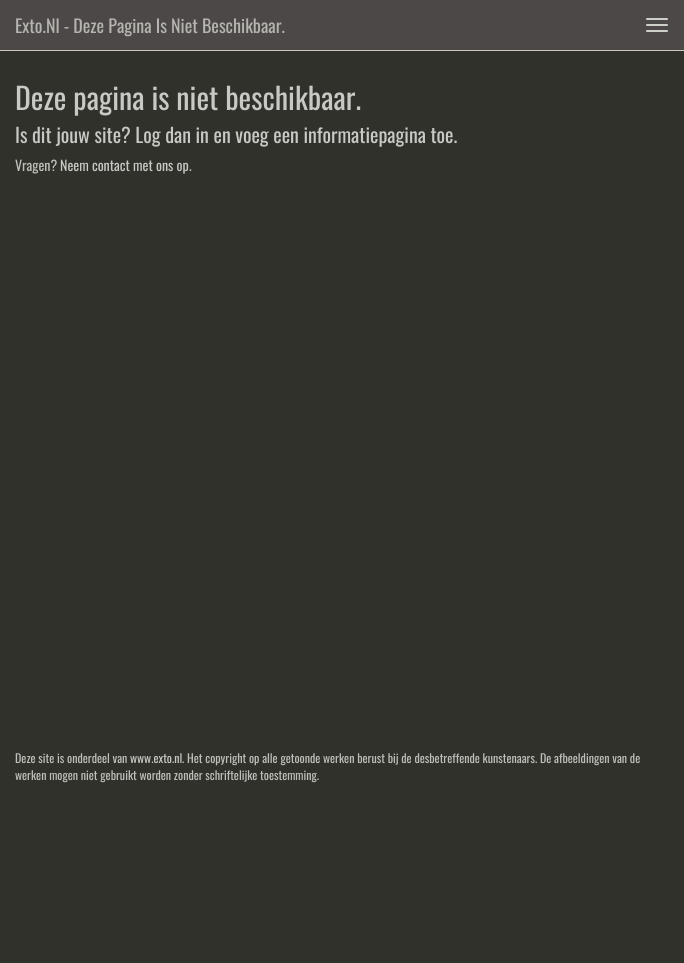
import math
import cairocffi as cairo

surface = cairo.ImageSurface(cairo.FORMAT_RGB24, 684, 963)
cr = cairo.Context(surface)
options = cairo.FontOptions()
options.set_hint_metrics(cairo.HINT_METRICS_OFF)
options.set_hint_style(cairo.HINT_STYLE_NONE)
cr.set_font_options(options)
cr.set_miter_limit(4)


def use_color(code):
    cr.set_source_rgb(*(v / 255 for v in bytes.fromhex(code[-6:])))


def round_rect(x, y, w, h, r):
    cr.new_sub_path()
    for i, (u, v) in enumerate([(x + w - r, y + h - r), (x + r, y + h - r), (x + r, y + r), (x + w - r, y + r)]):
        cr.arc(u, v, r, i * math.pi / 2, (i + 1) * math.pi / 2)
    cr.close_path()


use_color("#31312b")
cr.paint()
use_color("#4c4848")
cr.rectangle(0, 0, 684, 50)
cr.fill()
use_color("#c9c6bb")
cr.rectangle(0, 50, 684, 1)
cr.fill()
cr.select_font_face("Oswald")
cr.set_font_size(18)
use_color("#b5b4af")
cr.move_to(15, 33)
cr.show_text("Exto.Nl - Deze Pagina Is Niet Beschikbaar.")
use_color("#cfcfc9")
round_rect(646, 18, 22, 2, 1)
cr.fill()
round_rect(646, 24, 22, 2, 1)
cr.fill()
round_rect(646, 30, 22, 2, 1)
cr.fill()
cr.set_font_size(30)
use_color("#c8c9c5")
cr.move_to(15, 110)
cr.show_text("Deze pagina is niet beschikbaar.")
cr.set_font_size(20)
cr.move_to(15, 143)
cr.show_text("Is dit jouw site? Log dan in en voeg een informatiepagina toe.")
cr.set_font_size(14)
use_color("#bebfba")
cr.move_to(15, 171)
cr.show_text("Vragen?")
use_color("#c8c9c5")
cr.move_to(60, 171)
cr.show_text("Neem contact met ons op")
use_color("#bebfba")
cr.move_to(189, 171)
cr.show_text(".")
cr.set_font_size(12)
cr.move_to(15, 763)
cr.show_text("Deze site is onderdeel van")
use_color("#c8c9c5")
cr.move_to(130, 763)
cr.show_text("www.exto.nl")
use_color("#bebfba")
cr.move_to(182, 763)
cr.show_text(". Het copyright op alle getoonde werken berust bij de desbetreffende kunstenaars. De afbeeldingen van de")
cr.move_to(15, 780)
cr.show_text("werken mogen niet gebruikt worden zonder schriftelijke toestemming.")
surface.write_to_png("result.png")
